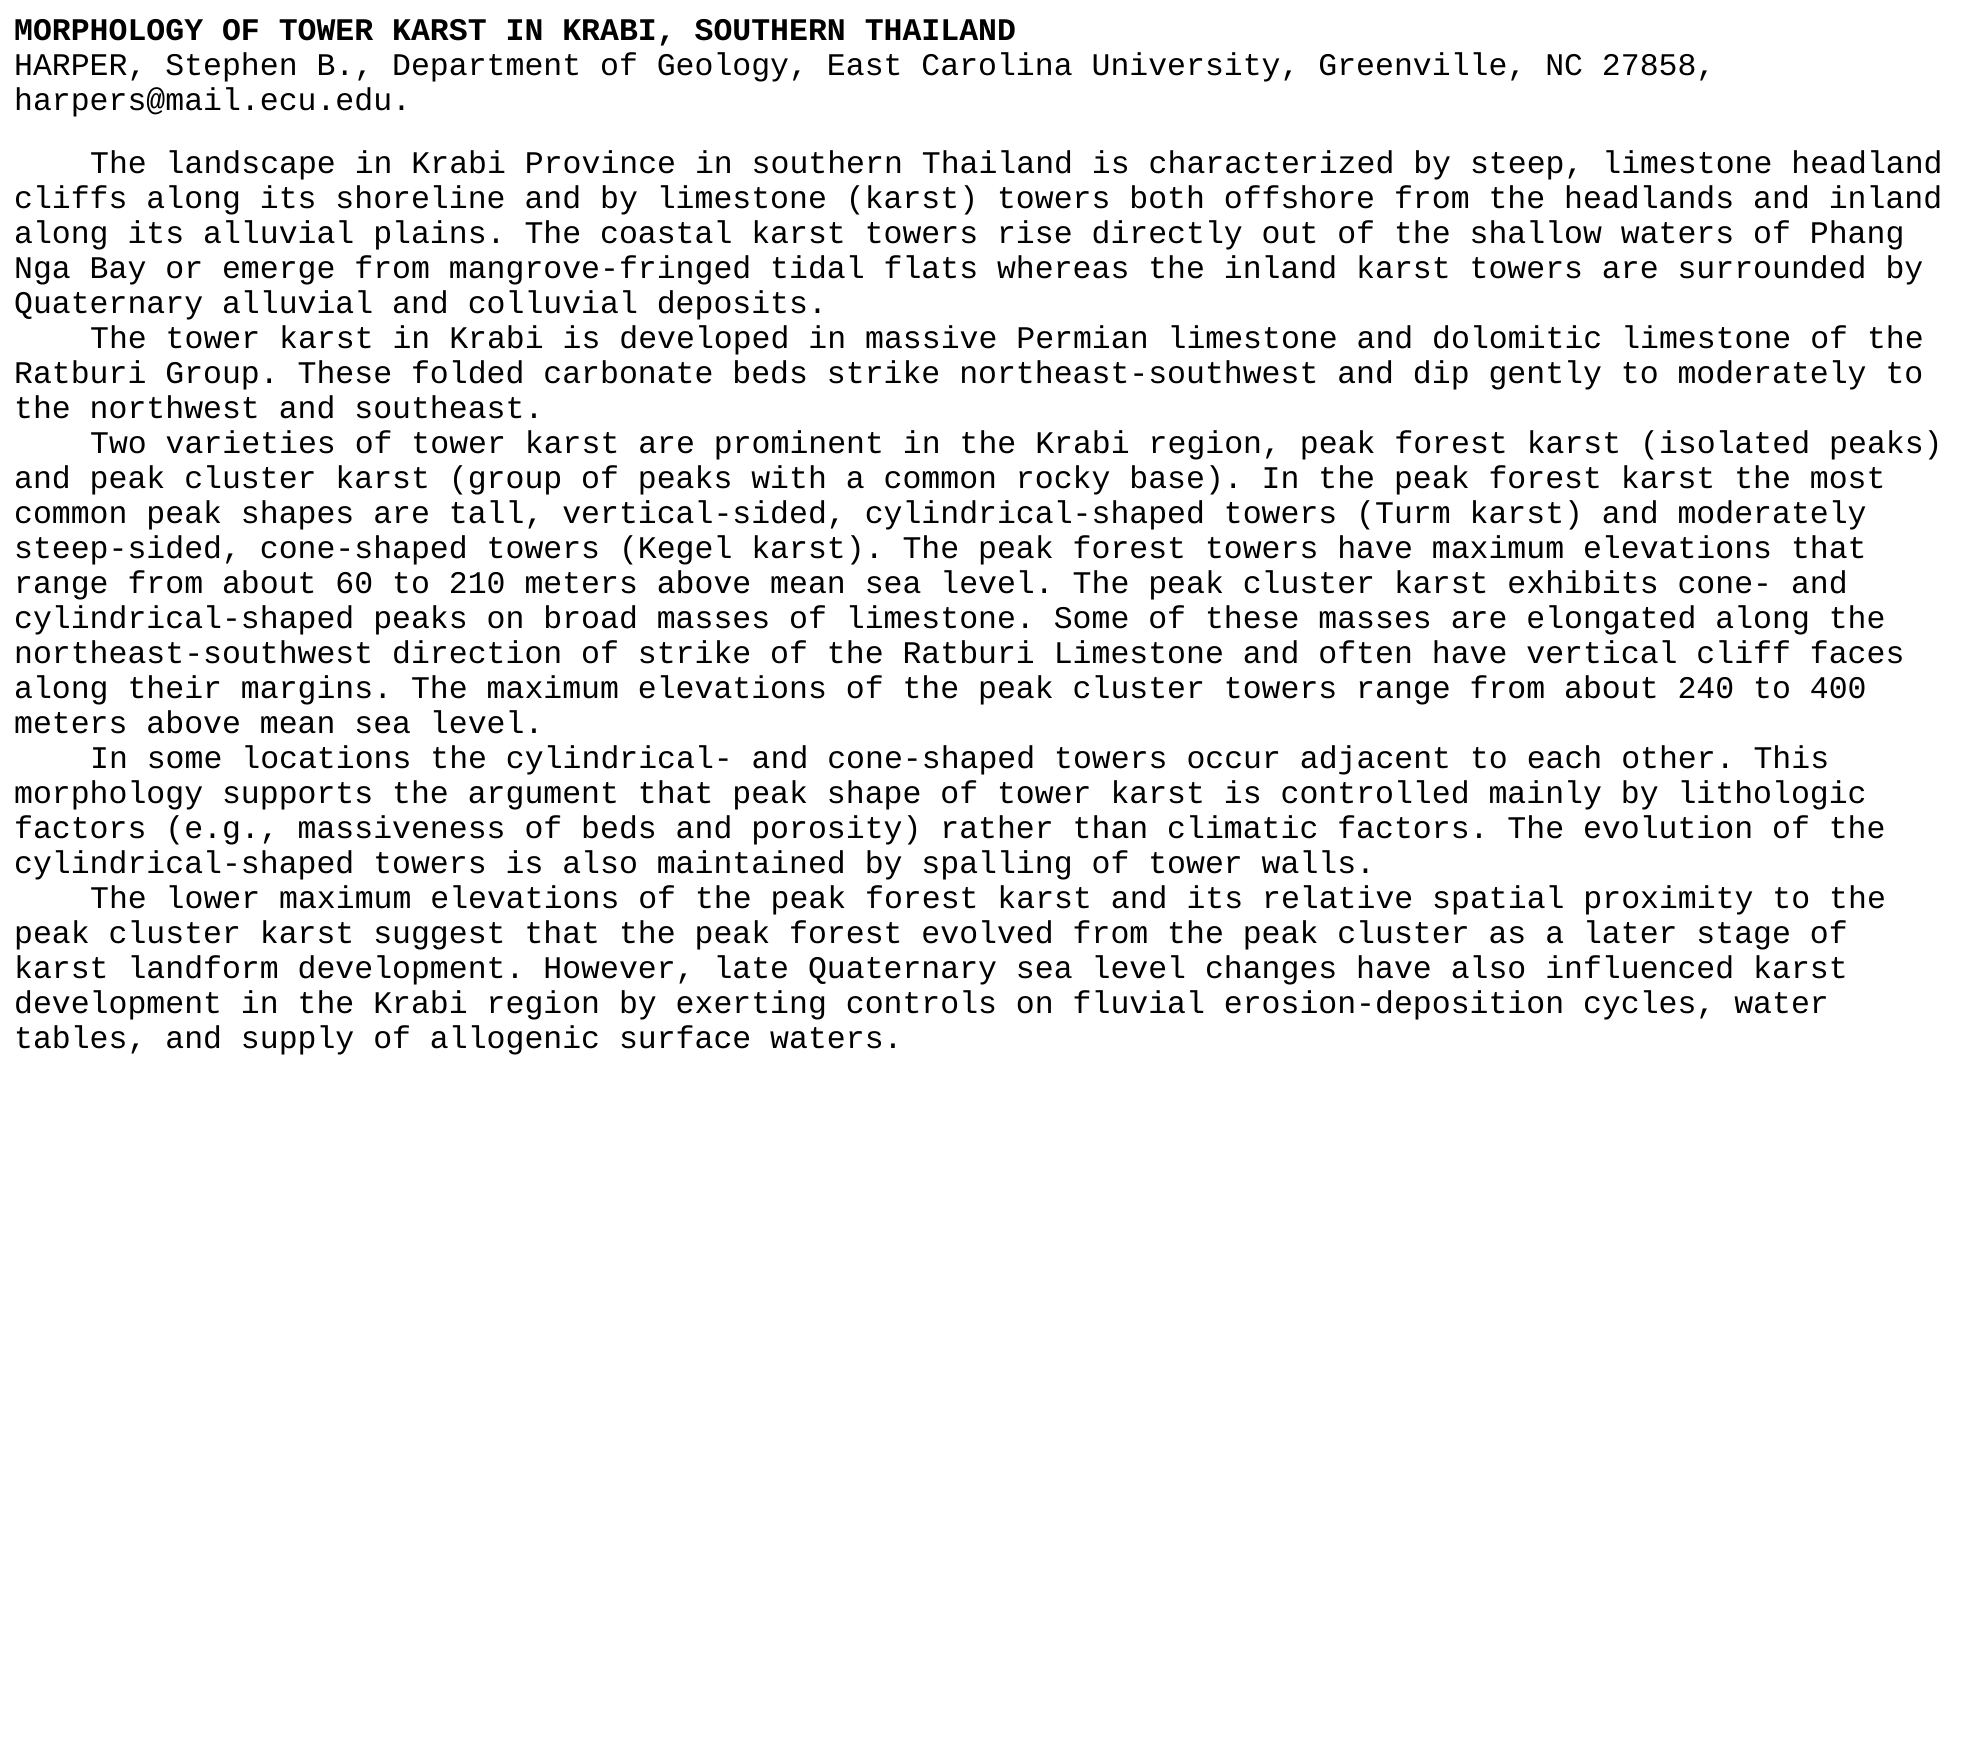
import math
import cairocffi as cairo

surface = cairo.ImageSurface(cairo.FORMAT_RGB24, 1968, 1739)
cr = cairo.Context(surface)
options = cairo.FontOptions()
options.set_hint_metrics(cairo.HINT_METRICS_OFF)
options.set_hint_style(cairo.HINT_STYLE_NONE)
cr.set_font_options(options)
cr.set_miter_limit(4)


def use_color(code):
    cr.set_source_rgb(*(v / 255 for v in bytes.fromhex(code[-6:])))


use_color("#ffffff")
cr.paint()
cr.select_font_face("Liberation Mono", cairo.FONT_SLANT_NORMAL, cairo.FONT_WEIGHT_BOLD)
cr.set_font_size(31.5)
use_color("#000000")
cr.move_to(14, 40)
cr.show_text("MORPHOLOGY OF TOWER KARST IN KRABI, SOUTHERN THAILAND")
cr.select_font_face("Liberation Mono")
cr.move_to(14, 75)
cr.show_text("HARPER, Stephen B., Department of Geology, East Carolina University, Greenville, NC 27858,")
cr.move_to(14, 110)
cr.show_text("harpers@mail.ecu.edu.")
cr.move_to(90, 173)
cr.show_text("The landscape in Krabi Province in southern Thailand is characterized by steep, limestone headland")
cr.move_to(14, 208)
cr.show_text("cliffs along its shoreline and by limestone (karst) towers both offshore from the headlands and inland")
cr.move_to(14, 243)
cr.show_text("along its alluvial plains. The coastal karst towers rise directly out of the shallow waters of Phang")
cr.move_to(14, 278)
cr.show_text("Nga Bay or emerge from mangrove-fringed tidal flats whereas the inland karst towers are surrounded by")
cr.move_to(14, 313)
cr.show_text("Quaternary alluvial and colluvial deposits.")
cr.move_to(90, 348)
cr.show_text("The tower karst in Krabi is developed in massive Permian limestone and dolomitic limestone of the")
cr.move_to(14, 383)
cr.show_text("Ratburi Group. These folded carbonate beds strike northeast-southwest and dip gently to moderately to")
cr.move_to(14, 418)
cr.show_text("the northwest and southeast.")
cr.move_to(90, 453)
cr.show_text("Two varieties of tower karst are prominent in the Krabi region, peak forest karst (isolated peaks)")
cr.move_to(14, 488)
cr.show_text("and peak cluster karst (group of peaks with a common rocky base). In the peak forest karst the most")
cr.move_to(14, 523)
cr.show_text("common peak shapes are tall, vertical-sided, cylindrical-shaped towers (Turm karst) and moderately")
cr.move_to(14, 558)
cr.show_text("steep-sided, cone-shaped towers (Kegel karst). The peak forest towers have maximum elevations that")
cr.move_to(14, 593)
cr.show_text("range from about 60 to 210 meters above mean sea level. The peak cluster karst exhibits cone- and")
cr.move_to(14, 628)
cr.show_text("cylindrical-shaped peaks on broad masses of limestone. Some of these masses are elongated along the")
cr.move_to(14, 663)
cr.show_text("northeast-southwest direction of strike of the Ratburi Limestone and often have vertical cliff faces")
cr.move_to(14, 698)
cr.show_text("along their margins. The maximum elevations of the peak cluster towers range from about 240 to 400")
cr.move_to(14, 733)
cr.show_text("meters above mean sea level.")
cr.move_to(90, 768)
cr.show_text("In some locations the cylindrical- and cone-shaped towers occur adjacent to each other. This")
cr.move_to(14, 803)
cr.show_text("morphology supports the argument that peak shape of tower karst is controlled mainly by lithologic")
cr.move_to(14, 838)
cr.show_text("factors (e.g., massiveness of beds and porosity) rather than climatic factors. The evolution of the")
cr.move_to(14, 873)
cr.show_text("cylindrical-shaped towers is also maintained by spalling of tower walls.")
cr.move_to(90, 908)
cr.show_text("The lower maximum elevations of the peak forest karst and its relative spatial proximity to the")
cr.move_to(14, 943)
cr.show_text("peak cluster karst suggest that the peak forest evolved from the peak cluster as a later stage of")
cr.move_to(14, 978)
cr.show_text("karst landform development. However, late Quaternary sea level changes have also influenced karst")
cr.move_to(14, 1013)
cr.show_text("development in the Krabi region by exerting controls on fluvial erosion-deposition cycles, water")
cr.move_to(14, 1048)
cr.show_text("tables, and supply of allogenic surface waters.")
surface.write_to_png("result.png")
